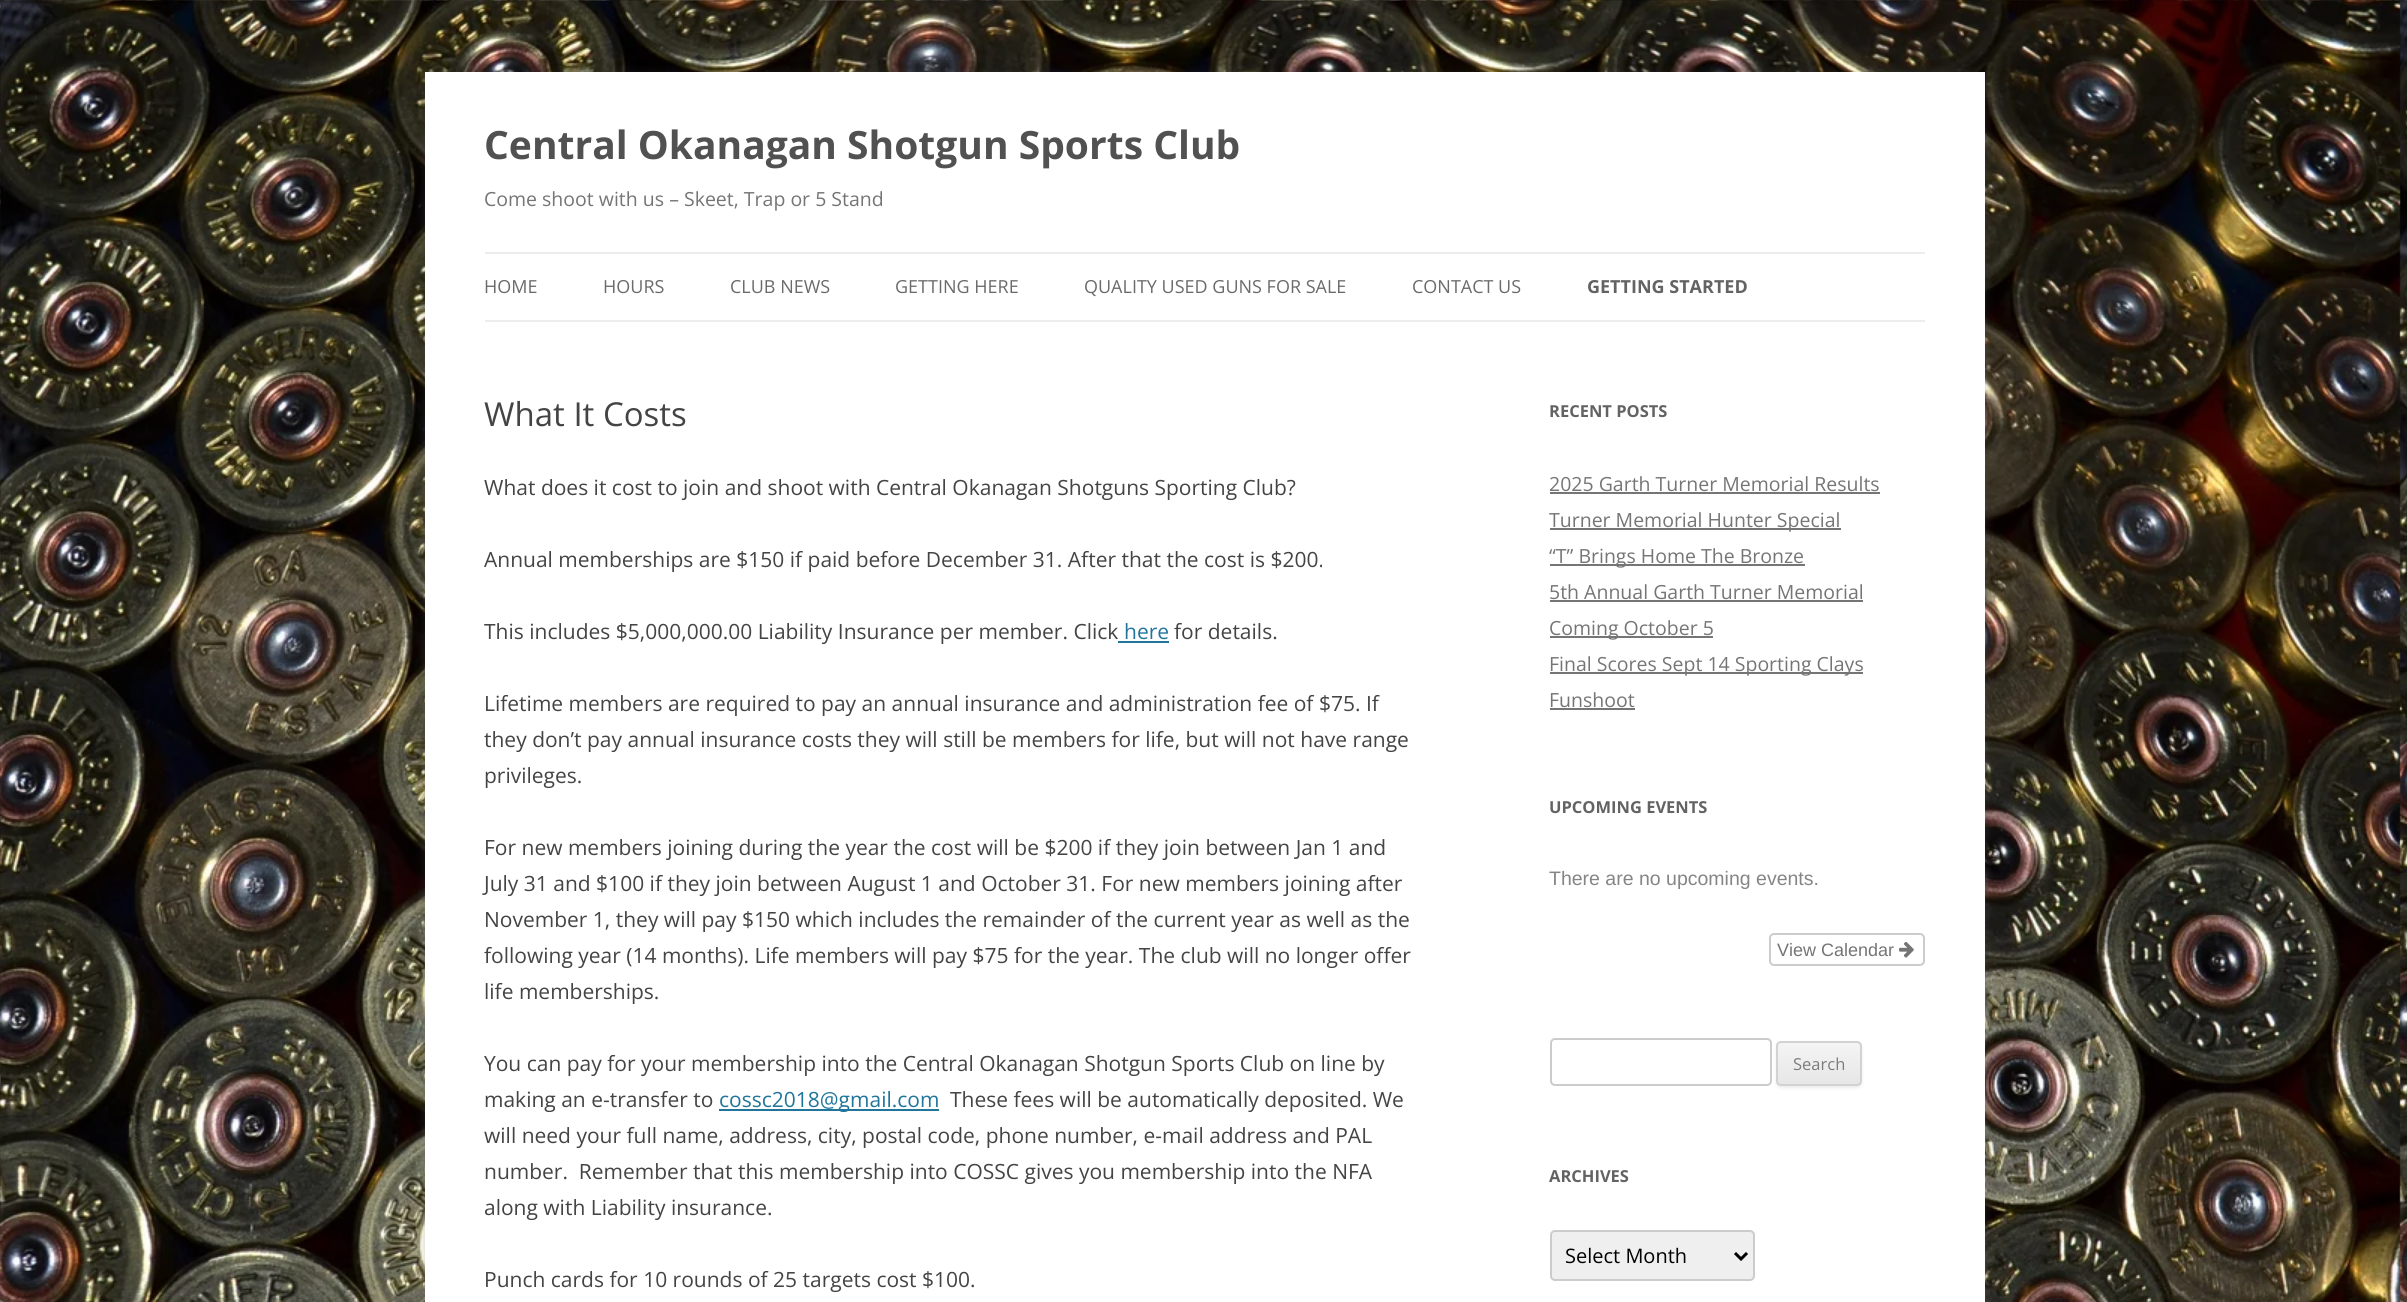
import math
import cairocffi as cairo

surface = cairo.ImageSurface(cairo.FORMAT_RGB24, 2407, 1302)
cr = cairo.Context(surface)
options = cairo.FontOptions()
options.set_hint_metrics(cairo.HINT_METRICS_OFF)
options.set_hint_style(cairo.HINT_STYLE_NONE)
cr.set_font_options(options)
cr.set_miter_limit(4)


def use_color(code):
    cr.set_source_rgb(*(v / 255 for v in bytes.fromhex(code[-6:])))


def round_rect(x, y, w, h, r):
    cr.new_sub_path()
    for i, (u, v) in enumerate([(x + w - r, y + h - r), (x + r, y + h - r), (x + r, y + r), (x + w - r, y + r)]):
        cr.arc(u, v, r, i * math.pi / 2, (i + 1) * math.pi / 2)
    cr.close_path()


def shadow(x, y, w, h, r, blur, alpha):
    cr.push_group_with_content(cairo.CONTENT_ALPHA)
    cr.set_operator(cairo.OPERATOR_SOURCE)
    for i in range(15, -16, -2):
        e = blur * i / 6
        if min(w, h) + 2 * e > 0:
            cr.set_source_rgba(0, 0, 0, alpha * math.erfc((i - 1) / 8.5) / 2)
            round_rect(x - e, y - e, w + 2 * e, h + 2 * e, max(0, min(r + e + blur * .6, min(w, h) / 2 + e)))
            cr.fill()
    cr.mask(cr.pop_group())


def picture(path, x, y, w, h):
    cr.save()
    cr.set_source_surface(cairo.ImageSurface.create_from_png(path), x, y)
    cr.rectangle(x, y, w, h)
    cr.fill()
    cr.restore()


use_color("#ffffff")
cr.paint()
picture("img1.png", 0, 0, 2407, 1302)
use_color("#646464")
shadow(425, 75, 1560, 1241, 0, 4.5, 0.3)
use_color("#ffffff")
cr.rectangle(425, 72, 1560, 1230)
cr.fill()
cr.select_font_face("Open Sans", cairo.FONT_SLANT_NORMAL, cairo.FONT_WEIGHT_BOLD)
cr.set_font_size(39)
use_color("#515151")
cr.move_to(484, 159)
cr.show_text("Central Okanagan Shotgun Sports Club")
cr.select_font_face("Open Sans")
cr.set_font_size(19.5)
use_color("#757575")
cr.move_to(484, 206)
cr.show_text("Come shoot with us – Skeet, Trap or 5 Stand")
use_color("#ededed")
cr.rectangle(485, 252, 1440, 2)
cr.fill()
cr.rectangle(485, 320, 1440, 2)
cr.fill()
cr.set_font_size(18)
use_color("#6a6a6a")
cr.move_to(484, 293)
cr.show_text("HOME")
cr.move_to(603, 293)
cr.show_text("HOURS")
cr.move_to(730, 293)
cr.show_text("CLUB NEWS")
cr.move_to(895, 293)
cr.show_text("GETTING HERE")
cr.move_to(1084, 293)
cr.show_text("QUALITY USED GUNS FOR SALE")
cr.move_to(1412, 293)
cr.show_text("CONTACT US")
cr.select_font_face("Open Sans", cairo.FONT_SLANT_NORMAL, cairo.FONT_WEIGHT_BOLD)
use_color("#636363")
cr.move_to(1587, 293)
cr.show_text("GETTING STARTED")
cr.select_font_face("Open Sans")
cr.set_font_size(33)
use_color("#444444")
cr.move_to(484, 426)
cr.show_text("What It Costs")
cr.set_font_size(21)
cr.move_to(484, 495)
cr.show_text("What does it cost to join and shoot with Central Okanagan Shotguns Sporting Club?")
cr.move_to(484, 567)
cr.show_text("Annual memberships are $150 if paid before December 31. After that the cost is $200.")
cr.move_to(484, 639)
cr.show_text("This includes $5,000,000.00 Liability Insurance per member. Click")
use_color("#21759b")
cr.move_to(1124, 639)
cr.show_text("here")
use_color("#444444")
cr.move_to(1174, 639)
cr.show_text("for details.")
use_color("#21759b")
cr.rectangle(1118, 641, 51, 2)
cr.fill()
use_color("#444444")
cr.move_to(484, 711)
cr.show_text("Lifetime members are required to pay an annual insurance and administration fee of $75. If")
cr.move_to(484, 747)
cr.show_text("they don’t pay annual insurance costs they will still be members for life, but will not have range")
cr.move_to(484, 783)
cr.show_text("privileges.")
cr.move_to(484, 855)
cr.show_text("For new members joining during the year the cost will be $200 if they join between Jan 1 and")
cr.move_to(484, 891)
cr.show_text("July 31 and $100 if they join between August 1 and October 31. For new members joining after")
cr.move_to(484, 927)
cr.show_text("November 1, they will pay $150 which includes the remainder of the current year as well as the")
cr.move_to(484, 963)
cr.show_text("following year (14 months). Life members will pay $75 for the year. The club will no longer offer")
cr.move_to(484, 999)
cr.show_text("life memberships.")
cr.move_to(484, 1071)
cr.show_text("You can pay for your membership into the Central Okanagan Shotgun Sports Club on line by")
cr.move_to(484, 1107)
cr.show_text("making an e-transfer to")
use_color("#21759b")
cr.rectangle(719, 1109, 220, 2)
cr.fill()
cr.move_to(719, 1107)
cr.show_text("cossc2018@gmail.com")
use_color("#444444")
cr.move_to(950, 1107)
cr.show_text("These fees will be automatically deposited. We")
cr.move_to(484, 1143)
cr.show_text("will need your full name, address, city, postal code, phone number, e-mail address and PAL")
cr.move_to(484, 1179)
cr.show_text("number.  Remember that this membership into COSSC gives you membership into the NFA")
cr.move_to(484, 1215)
cr.show_text("along with Liability insurance.")
cr.move_to(484, 1287)
cr.show_text("Punch cards for 10 rounds of 25 targets cost $100.")
cr.select_font_face("Open Sans", cairo.FONT_SLANT_NORMAL, cairo.FONT_WEIGHT_BOLD)
cr.set_font_size(16.5)
use_color("#636363")
cr.move_to(1549, 417)
cr.show_text("RECENT POSTS")
cr.select_font_face("Open Sans")
cr.set_font_size(19.5)
use_color("#757575")
cr.move_to(1549, 491)
cr.show_text("2025 Garth Turner Memorial Results")
cr.rectangle(1550, 492, 330, 2)
cr.fill()
cr.rectangle(1550, 528, 291, 2)
cr.fill()
cr.move_to(1549, 527)
cr.show_text("Turner Memorial Hunter Special")
cr.rectangle(1550, 564, 255, 2)
cr.fill()
cr.move_to(1549, 563)
cr.show_text("“T” Brings Home The Bronze")
cr.move_to(1549, 599)
cr.show_text("5th Annual Garth Turner Memorial")
cr.rectangle(1550, 600, 313, 2)
cr.fill()
cr.rectangle(1550, 636, 163, 2)
cr.fill()
cr.move_to(1549, 635)
cr.show_text("Coming October 5")
cr.rectangle(1550, 672, 313, 2)
cr.fill()
cr.move_to(1549, 671)
cr.show_text("Final Scores Sept 14 Sporting Clays")
cr.move_to(1549, 707)
cr.show_text("Funshoot")
cr.rectangle(1550, 708, 85, 2)
cr.fill()
cr.select_font_face("Open Sans", cairo.FONT_SLANT_NORMAL, cairo.FONT_WEIGHT_BOLD)
cr.set_font_size(16.5)
use_color("#636363")
cr.move_to(1549, 813)
cr.show_text("UPCOMING EVENTS")
cr.select_font_face("Liberation Sans")
cr.set_font_size(19.5)
use_color("#858585")
cr.move_to(1549, 885)
cr.show_text("There are no upcoming events.")
round_rect(1770, 934, 154, 31, 4)
use_color("#cccccc")
cr.stroke()
cr.set_font_size(18)
use_color("#757575")
cr.move_to(1777, 956)
cr.show_text("View Calendar")
picture("img2.png", 1899, 941, 15, 17)
round_rect(1551, 1039, 220, 46, 4)
use_color("#cccccc")
cr.stroke()
use_color("#404040")
shadow(1776, 1043, 86, 45, 5, 1.5, 0.1)
cr.save()
round_rect(1776, 1041, 86, 45, 5)
cr.clip()
gradient = cairo.LinearGradient(1819, 1043, 1819, 1085)
gradient.add_color_stop_rgba(0, 0.957, 0.957, 0.957, 1)
gradient.add_color_stop_rgba(1, 0.902, 0.902, 0.902, 1)
cr.set_source(gradient)
cr.rectangle(1776, 1043, 86, 42)
cr.fill()
cr.restore()
round_rect(1777, 1042, 84, 43, 4)
use_color("#d2d2d2")
cr.stroke()
cr.select_font_face("Open Sans")
cr.set_font_size(16.5)
use_color("#7c7c7c")
cr.move_to(1793, 1070)
cr.show_text("Search")
cr.select_font_face("Open Sans", cairo.FONT_SLANT_NORMAL, cairo.FONT_WEIGHT_BOLD)
use_color("#636363")
cr.move_to(1549, 1182)
cr.show_text("ARCHIVES")
use_color("#efefef")
round_rect(1551, 1231, 203, 49, 4)
cr.fill_preserve()
use_color("#cccccc")
cr.stroke()
cr.new_path()
cr.move_to(1735, 1253)
cr.line_to(1741, 1259)
cr.line_to(1747, 1253)
use_color("#000000")
cr.set_line_width(3)
cr.stroke()
cr.select_font_face("Open Sans")
cr.set_font_size(20)
cr.move_to(1565, 1263)
cr.show_text("Select Month")
surface.write_to_png("result.png")
